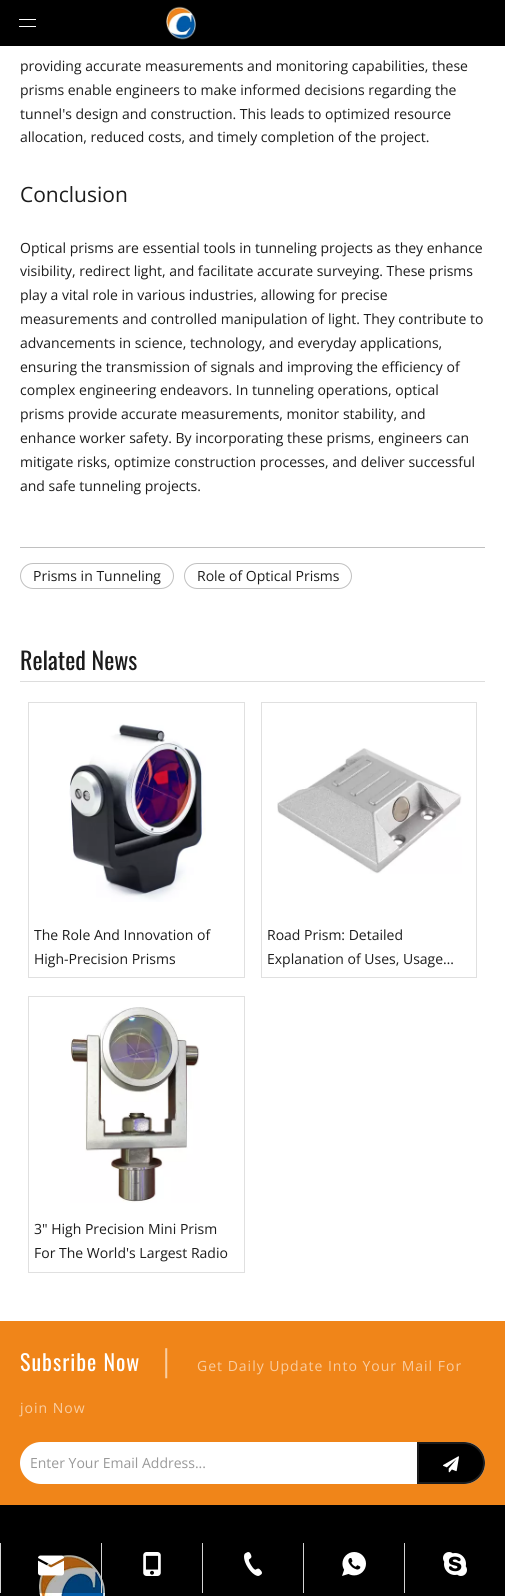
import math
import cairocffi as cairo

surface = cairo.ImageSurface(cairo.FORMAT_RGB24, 505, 1596)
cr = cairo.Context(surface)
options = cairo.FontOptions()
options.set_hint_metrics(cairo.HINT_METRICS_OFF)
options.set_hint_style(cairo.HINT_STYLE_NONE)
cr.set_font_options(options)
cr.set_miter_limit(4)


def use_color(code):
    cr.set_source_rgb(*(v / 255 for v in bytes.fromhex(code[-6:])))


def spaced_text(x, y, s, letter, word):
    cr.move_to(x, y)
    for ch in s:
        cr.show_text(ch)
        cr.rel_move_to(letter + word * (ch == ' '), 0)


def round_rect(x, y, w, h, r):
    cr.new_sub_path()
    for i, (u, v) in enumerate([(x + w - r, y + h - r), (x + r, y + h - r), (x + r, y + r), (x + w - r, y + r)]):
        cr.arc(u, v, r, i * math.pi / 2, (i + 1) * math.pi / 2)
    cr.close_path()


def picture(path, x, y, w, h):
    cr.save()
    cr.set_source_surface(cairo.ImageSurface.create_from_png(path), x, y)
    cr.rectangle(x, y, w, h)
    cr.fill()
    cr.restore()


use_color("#ffffff")
cr.paint()
use_color("#000000")
cr.rectangle(0, 0, 505, 46)
cr.fill()
use_color("#ffffff")
cr.rectangle(19, 19, 17, 1)
cr.fill()
cr.rectangle(19, 26, 17, 1)
cr.fill()
picture("img1.png", 166, 6, 30, 34)
cr.select_font_face("Open Sans")
cr.set_font_size(14)
use_color("#1c1c1c")
cr.move_to(20, 71)
cr.show_text("providing accurate measurements and monitoring capabilities, these")
cr.move_to(20, 95)
cr.show_text("prisms enable engineers to make informed decisions regarding the")
cr.move_to(20, 119)
cr.show_text("tunnel's design and construction. This leads to optimized resource")
cr.move_to(20, 142)
cr.show_text("allocation, reduced costs, and timely completion of the project.")
cr.set_font_size(21)
cr.move_to(20, 202)
cr.show_text("Conclusion")
cr.set_font_size(14)
cr.move_to(20, 253)
cr.show_text("Optical prisms are essential tools in tunneling projects as they enhance")
cr.move_to(20, 276)
cr.show_text("visibility, redirect light, and facilitate accurate surveying. These prisms")
cr.move_to(20, 300)
cr.show_text("play a vital role in various industries, allowing for precise")
cr.move_to(20, 324)
cr.show_text("measurements and controlled manipulation of light. They contribute to")
cr.move_to(20, 348)
cr.show_text("advancements in science, technology, and everyday applications,")
cr.move_to(20, 372)
cr.show_text("ensuring the transmission of signals and improving the efficiency of")
cr.move_to(20, 395)
cr.show_text("complex engineering endeavors. In tunneling operations, optical")
cr.move_to(20, 419)
cr.show_text("prisms provide accurate measurements, monitor stability, and")
cr.move_to(20, 443)
cr.show_text("enhance worker safety. By incorporating these prisms, engineers can")
cr.move_to(20, 467)
cr.show_text("mitigate risks, optimize construction processes, and deliver successful")
cr.move_to(20, 491)
cr.show_text("and safe tunneling projects.")
use_color("#c0c0c0")
cr.rectangle(20, 547, 465, 1)
cr.fill()
round_rect(20.5, 563.5, 153, 25, 12.5)
cr.set_line_width(1)
cr.stroke()
use_color("#1c1c1c")
cr.move_to(33, 581)
cr.show_text("Prisms in Tunneling")
round_rect(184.5, 563.5, 167, 25, 12.5)
use_color("#c0c0c0")
cr.stroke()
use_color("#1c1c1c")
cr.move_to(197, 581)
cr.show_text("Role of Optical Prisms")
use_color("#dddddd")
cr.rectangle(20, 681, 465, 1)
cr.fill()
cr.select_font_face("Oswald")
cr.set_font_size(24)
use_color("#1c1c1c")
cr.move_to(20, 670)
cr.show_text("Related News")
cr.rectangle(28.5, 702.5, 216, 275)
use_color("#e0e0e0")
cr.stroke()
picture("img2.png", 69, 724, 137, 178)
cr.select_font_face("Open Sans")
cr.set_font_size(14)
use_color("#1c1c1c")
cr.move_to(34, 940)
cr.show_text("The Role And Innovation of")
cr.move_to(34, 964)
cr.show_text("High-Precision Prisms")
cr.rectangle(261.5, 702.5, 215, 275)
use_color("#e0e0e0")
cr.stroke()
picture("img3.png", 277, 748, 185, 126)
use_color("#1c1c1c")
cr.move_to(267, 940)
cr.show_text("Road Prism: Detailed")
cr.move_to(267, 964)
cr.show_text("Explanation of Uses, Usage…")
cr.rectangle(28.5, 996.5, 216, 276)
use_color("#e0e0e0")
cr.stroke()
picture("img4.png", 70, 1007, 130, 196)
use_color("#1c1c1c")
cr.move_to(34, 1234)
cr.show_text("3\" High Precision Mini Prism")
cr.move_to(34, 1258)
cr.show_text("For The World's Largest Radio")
use_color("#f08519")
cr.rectangle(0, 1321, 505, 184)
cr.fill()
cr.select_font_face("Oswald")
cr.set_font_size(22)
use_color("#ffffff")
spaced_text(20, 1371, "Subsribe Now", 1, 0)
cr.select_font_face("Open Sans")
cr.set_font_size(30)
use_color("#f9cda1")
spaced_text(158, 1371, "|", 1, 0)
cr.set_font_size(14)
spaced_text(197, 1371, "Get Daily Update Into Your Mail For", 1, 0)
spaced_text(20, 1413, "join Now", 1, 0)
use_color("#ffffff")
round_rect(20, 1442, 465, 42, 21)
cr.fill()
use_color("#999999")
cr.move_to(30, 1468)
cr.show_text("Enter Your Email Address...")
use_color("#000000")
cr.new_path()
cr.move_to(418, 1443)
cr.line_to(464, 1443)
cr.curve_to(475, 1443, 484, 1452, 484, 1463)
cr.curve_to(484, 1474, 475, 1483, 464, 1483)
cr.line_to(418, 1483)
cr.close_path()
cr.fill_preserve()
use_color("#1c1c1c")
cr.set_line_width(2)
cr.stroke()
picture("img5.png", 443, 1456, 16, 17)
use_color("#000000")
cr.rectangle(0, 1505, 505, 91)
cr.fill()
picture("img6.png", 39, 1555, 66, 41)
cr.set_source_rgba(0, 0, 0, 0.3)
round_rect(0, 1543, 505, 50, 25)
cr.fill()
use_color("#d3d3d3")
cr.rectangle(0, 1543, 1, 50)
cr.fill()
picture("img7.png", 38, 1555, 26, 21)
cr.rectangle(101, 1543, 1, 50)
cr.fill()
picture("img8.png", 143, 1552, 18, 24)
cr.rectangle(202, 1543, 1, 50)
cr.fill()
picture("img9.png", 244, 1552, 18, 24)
cr.rectangle(303, 1543, 1, 50)
cr.fill()
picture("img10.png", 342, 1552, 24, 24)
cr.rectangle(404, 1543, 1, 50)
cr.fill()
picture("img11.png", 443, 1552, 24, 24)
surface.write_to_png("result.png")
